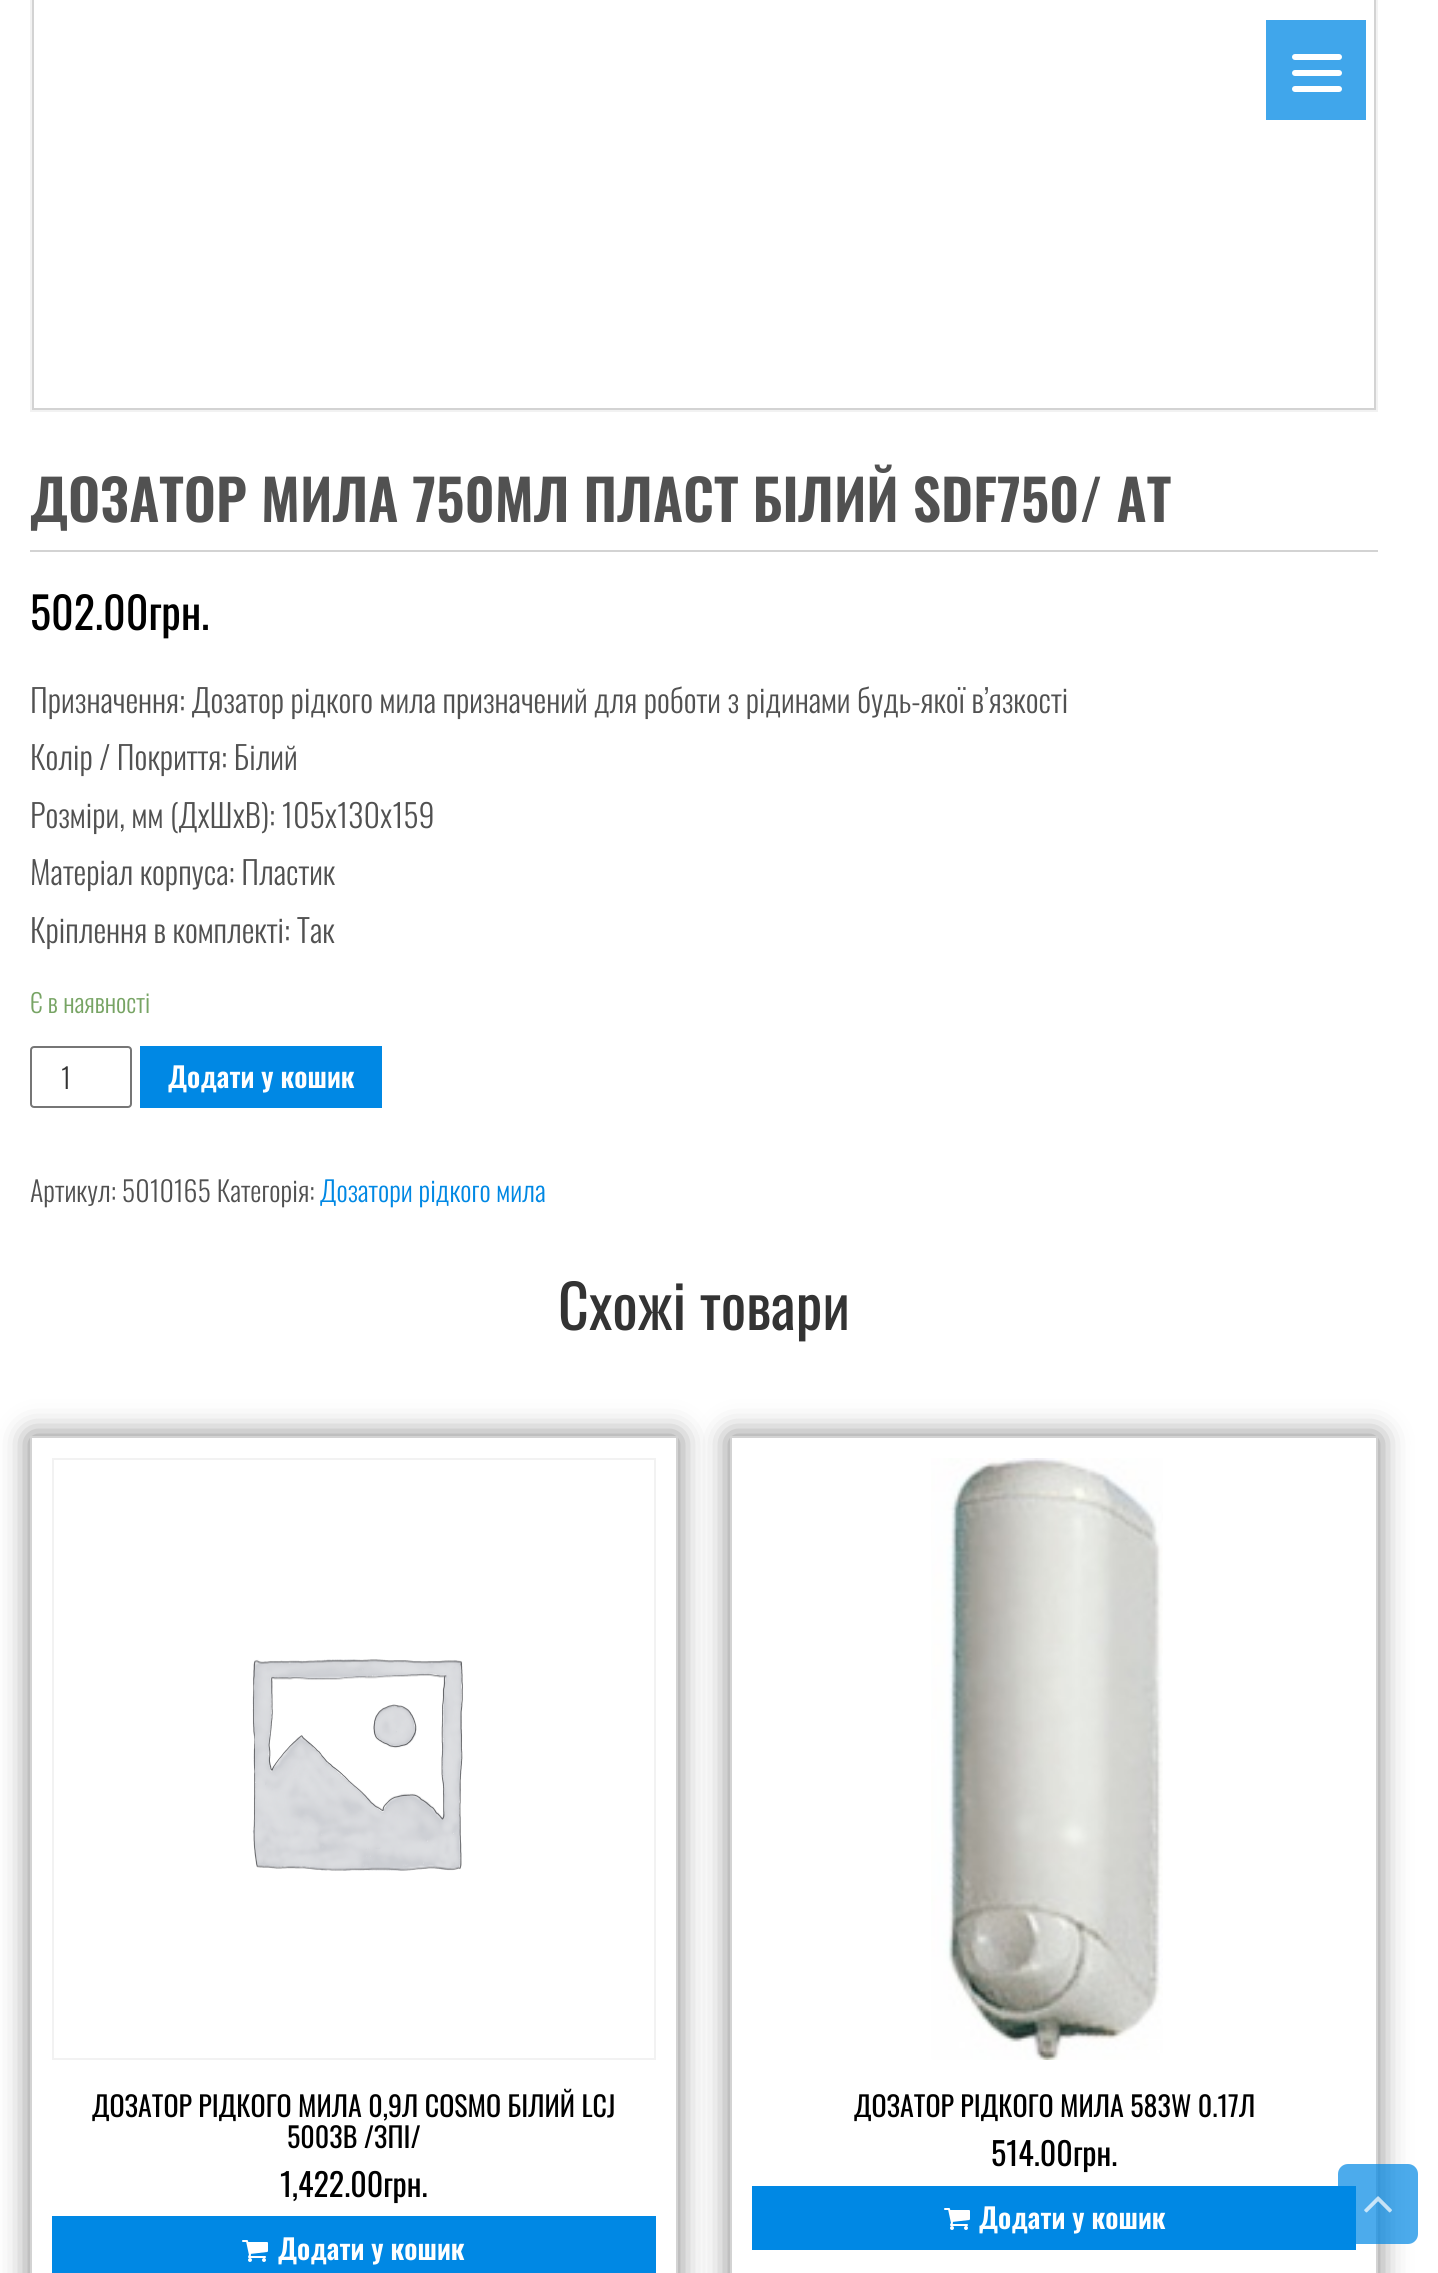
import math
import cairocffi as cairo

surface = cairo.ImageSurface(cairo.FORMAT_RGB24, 1438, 2273)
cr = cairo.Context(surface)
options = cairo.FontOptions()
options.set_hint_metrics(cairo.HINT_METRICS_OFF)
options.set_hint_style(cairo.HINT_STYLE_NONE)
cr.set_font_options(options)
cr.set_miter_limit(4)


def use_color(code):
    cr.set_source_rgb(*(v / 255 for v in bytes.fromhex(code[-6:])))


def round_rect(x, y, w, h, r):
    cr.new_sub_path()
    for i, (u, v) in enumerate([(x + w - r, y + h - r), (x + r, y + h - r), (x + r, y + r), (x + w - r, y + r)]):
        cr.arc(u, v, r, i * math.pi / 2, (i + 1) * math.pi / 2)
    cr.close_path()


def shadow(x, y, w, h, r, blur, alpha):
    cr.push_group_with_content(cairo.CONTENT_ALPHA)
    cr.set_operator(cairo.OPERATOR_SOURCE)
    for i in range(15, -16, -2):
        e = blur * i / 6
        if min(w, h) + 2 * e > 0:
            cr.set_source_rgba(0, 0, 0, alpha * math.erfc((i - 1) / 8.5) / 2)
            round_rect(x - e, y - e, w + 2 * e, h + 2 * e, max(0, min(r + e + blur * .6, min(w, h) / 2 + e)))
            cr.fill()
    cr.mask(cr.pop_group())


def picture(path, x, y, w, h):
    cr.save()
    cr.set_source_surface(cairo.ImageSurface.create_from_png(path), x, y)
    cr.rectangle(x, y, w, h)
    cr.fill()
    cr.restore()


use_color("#ffffff")
cr.paint()
cr.rectangle(31, -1, 1346, 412)
use_color("#f2f2f2")
cr.stroke()
cr.rectangle(33, -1, 1342, 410)
use_color("#d3d3d3")
cr.stroke()
use_color("#40a6eb")
cr.rectangle(1266, 20, 100, 100)
cr.fill()
use_color("#ffffff")
round_rect(1292, 70, 50, 6, 3)
cr.fill()
round_rect(1292, 54, 50, 6, 3)
cr.fill()
round_rect(1292, 86, 50, 6, 3)
cr.fill()
use_color("#d3d3d3")
cr.rectangle(30, 550, 1348, 2)
cr.fill()
cr.select_font_face("Oswald SemiBold")
cr.set_font_size(56)
use_color("#515151")
cr.move_to(30, 522)
cr.show_text("ДОЗАТОР МИЛА 750МЛ ПЛАСТ БІЛИЙ SDF750/ АТ")
cr.select_font_face("Oswald")
cr.set_font_size(44)
use_color("#000000")
cr.move_to(30, 630)
cr.show_text("502.00грн.")
cr.select_font_face("Oswald Light")
cr.set_font_size(32)
use_color("#515151")
cr.move_to(30, 713)
cr.show_text("Призначення: Дозатор рідкого мила призначений для роботи з рідинами будь-якої в’язкості")
cr.move_to(30, 770)
cr.show_text("Колір / Покриття: Білий")
cr.move_to(30, 828)
cr.show_text("Розміри, мм (ДхШхВ): 105х130х159")
cr.move_to(30, 885)
cr.show_text("Матеріал корпуса: Пластик")
cr.move_to(30, 943)
cr.show_text("Кріплення в комплекті: Так")
cr.set_font_size(25.75)
use_color("#77a464")
cr.move_to(30, 1013)
cr.show_text("Є в наявності")
round_rect(31, 1047, 100, 60, 3)
use_color("#767676")
cr.stroke()
cr.set_font_size(28)
use_color("#333333")
cr.move_to(61, 1089)
cr.show_text("1")
use_color("#0088e4")
cr.rectangle(140, 1046, 242, 62)
cr.fill()
cr.select_font_face("Oswald SemiBold")
use_color("#ffffff")
cr.move_to(168, 1088)
cr.show_text("Додати у кошик")
cr.select_font_face("Oswald Light")
use_color("#515151")
cr.move_to(30, 1202)
cr.show_text("Артикул: 5010165 Категорія:")
use_color("#0088e4")
cr.move_to(320, 1202)
cr.show_text("Дозатори рідкого мила")
cr.select_font_face("Oswald")
cr.set_font_size(60)
use_color("#333333")
cr.move_to(558, 1330)
cr.show_text("Схожі товари")
cr.save()
cr.set_fill_rule(cairo.FILL_RULE_EVEN_ODD)
cr.new_path()
cr.move_to(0, 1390)
cr.line_to(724, 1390)
cr.line_to(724, 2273)
cr.line_to(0, 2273)
cr.close_path()
cr.move_to(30, 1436)
cr.line_to(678, 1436)
cr.line_to(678, 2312)
cr.line_to(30, 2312)
cr.close_path()
cr.clip()
use_color("#000000")
shadow(30, 1436, 648, 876, 0, 15, 0.5)
cr.restore()
cr.rectangle(31, 1437, 646, 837)
use_color("#d3d3d3")
cr.stroke()
cr.rectangle(53, 1459, 602, 600)
use_color("#f2f2f2")
cr.stroke()
picture("img1.png", 252, 1659, 211, 212)
cr.set_font_size(28)
use_color("#000000")
cr.move_to(92, 2117)
cr.show_text("ДОЗАТОР РІДКОГО МИЛА 0,9Л COSMO БІЛИЙ LCJ")
cr.move_to(287, 2148)
cr.show_text("5003В /ЗПІ/")
cr.set_font_size(32)
cr.move_to(280, 2197)
cr.show_text("1,422.00грн.")
use_color("#0088e4")
cr.rectangle(52, 2216, 604, 57)
cr.fill()
picture("img2.png", 242, 2240, 26, 22)
cr.select_font_face("Oswald SemiBold")
cr.set_font_size(28)
use_color("#ffffff")
cr.move_to(278, 2260)
cr.show_text("Додати у кошик")
cr.save()
cr.set_fill_rule(cairo.FILL_RULE_EVEN_ODD)
cr.new_path()
cr.move_to(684, 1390)
cr.line_to(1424, 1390)
cr.line_to(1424, 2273)
cr.line_to(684, 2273)
cr.close_path()
cr.move_to(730, 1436)
cr.line_to(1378, 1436)
cr.line_to(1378, 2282)
cr.line_to(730, 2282)
cr.close_path()
cr.clip()
use_color("#000000")
shadow(730, 1436, 648, 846, 0, 15, 0.5)
cr.restore()
cr.rectangle(731, 1437, 646, 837)
use_color("#d3d3d3")
cr.stroke()
picture("img3.png", 931, 1458, 232, 602)
cr.select_font_face("Oswald")
use_color("#000000")
cr.move_to(854, 2117)
cr.show_text("ДОЗАТОР РІДКОГО МИЛА 583W 0.17Л")
cr.set_font_size(32)
cr.move_to(991, 2166)
cr.show_text("514.00грн.")
use_color("#0088e4")
cr.rectangle(752, 2186, 604, 64)
cr.fill()
picture("img2.png", 944, 2208, 26, 22)
cr.select_font_face("Oswald SemiBold")
cr.set_font_size(28)
use_color("#ffffff")
cr.move_to(979, 2229)
cr.show_text("Додати у кошик")
cr.set_source_rgba(0, 0.533, 0.894, 0.7)
round_rect(1338, 2164, 80, 80, 10)
cr.fill()
picture("img4.png", 1364, 2196, 28, 17)
surface.write_to_png("result.png")
